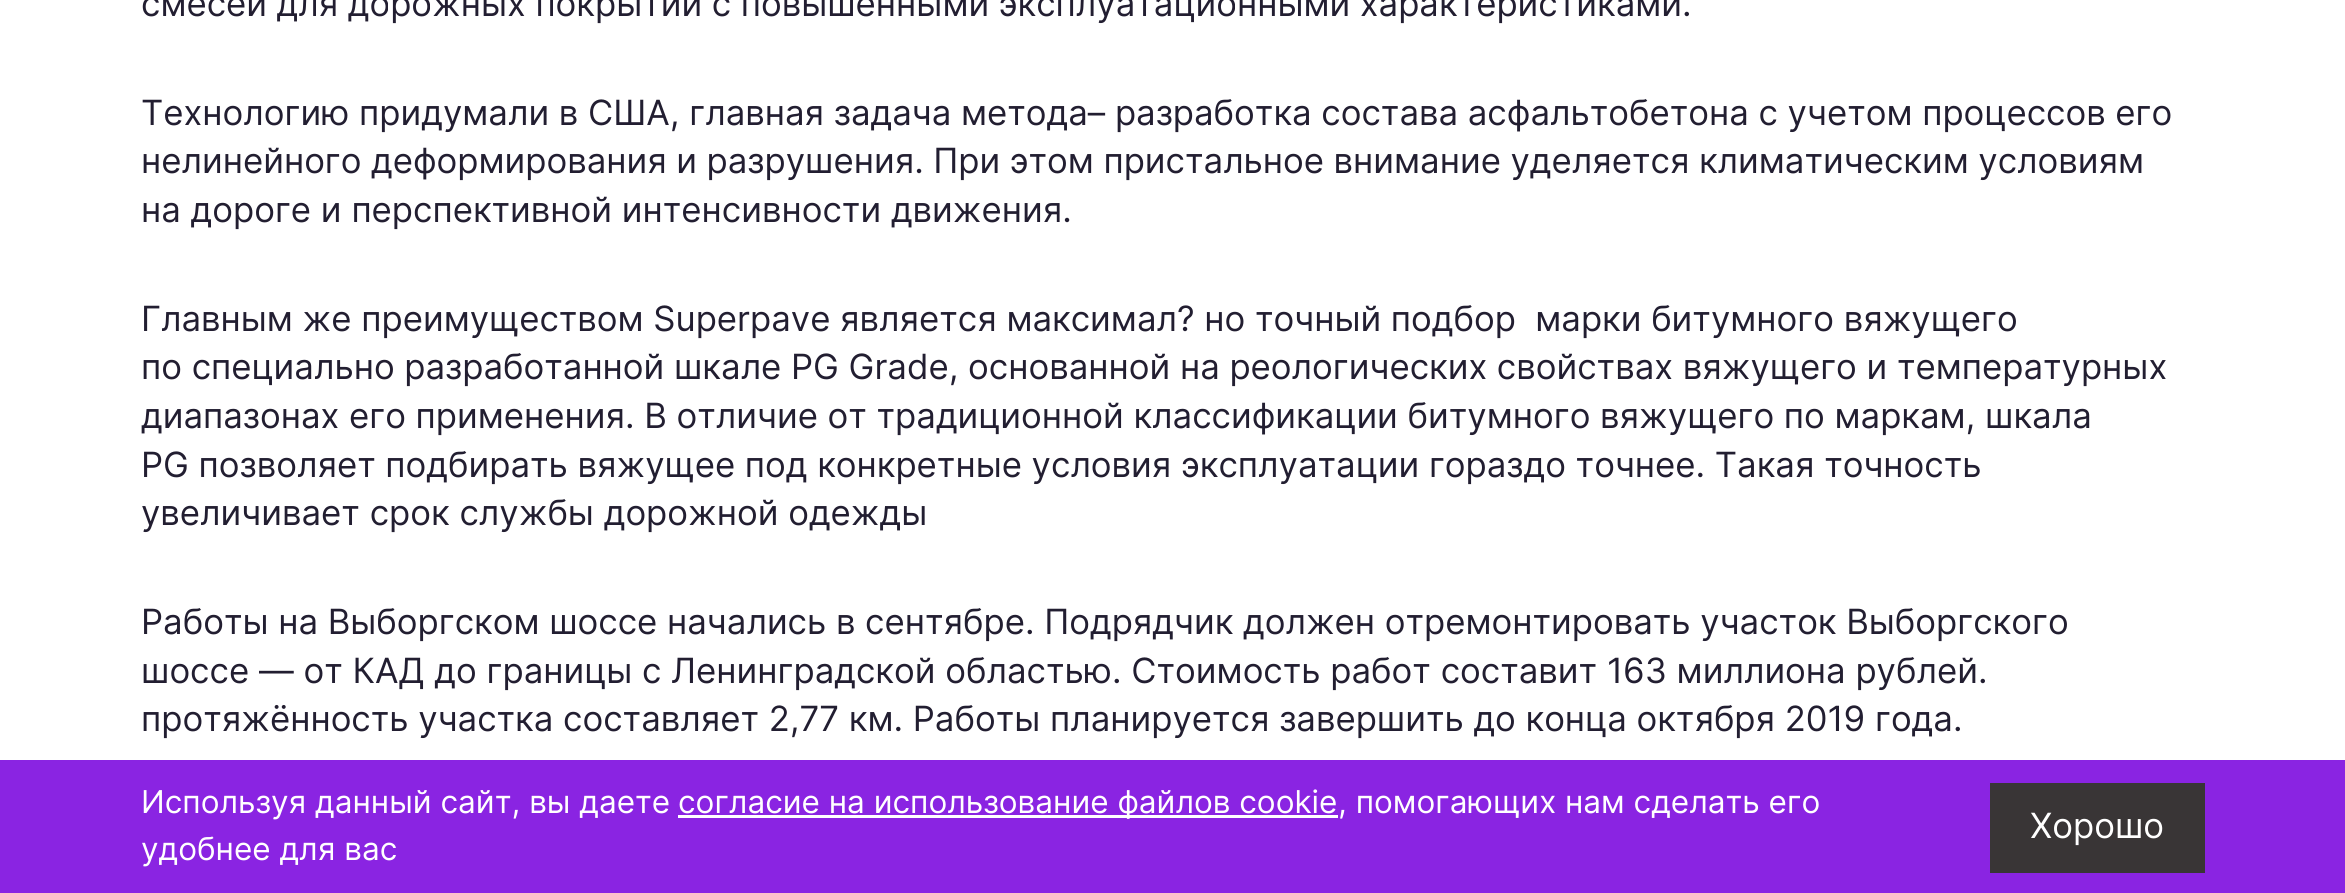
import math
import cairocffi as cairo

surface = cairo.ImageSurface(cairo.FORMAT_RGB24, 2345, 893)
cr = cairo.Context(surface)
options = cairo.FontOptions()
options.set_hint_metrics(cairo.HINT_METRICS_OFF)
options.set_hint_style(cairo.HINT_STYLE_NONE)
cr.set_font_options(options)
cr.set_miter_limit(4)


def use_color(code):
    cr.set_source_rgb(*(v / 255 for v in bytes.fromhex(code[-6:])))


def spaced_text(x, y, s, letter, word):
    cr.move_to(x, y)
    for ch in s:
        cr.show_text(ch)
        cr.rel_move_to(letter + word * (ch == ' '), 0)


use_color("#ffffff")
cr.paint()
cr.select_font_face("Inter")
cr.set_font_size(34.75)
use_color("#221e31")
spaced_text(141, 16, "смесей для дорожных покрытий с повышенными эксплуатационными характеристиками.", 0, -0.25)
spaced_text(141, 125, "Технологию придумали в США, главная задача метода– разработка состава асфальтобетона с учетом процессов его", 0, -0.1)
spaced_text(141, 173, "нелинейного деформирования и разрушения. При этом пристальное внимание уделяется климатическим условиям", 0, -0.25)
cr.move_to(141, 222)
cr.show_text("на дороге и перспективной интенсивности движения.")
spaced_text(141, 331, "Главным же преимуществом Superpave является максимал? но точный подбор  марки битумного вяжущего", 0, -0.1)
spaced_text(141, 379, "по специально разработанной шкале PG Grade, основанной на реологических свойствах вяжущего и температурных", 0, -0.1)
spaced_text(141, 428, "диапазонах его применения. В отличие от традиционной классификации битумного вяжущего по маркам, шкала", 0, -0.1)
spaced_text(141, 477, "PG позволяет подбирать вяжущее под конкретные условия эксплуатации гораздо точнее. Такая точность", 0, -0.1)
cr.move_to(141, 525)
cr.show_text("увеличивает срок службы дорожной одежды")
spaced_text(141, 634, "Работы на Выборгском шоссе начались в сентябре. Подрядчик должен отремонтировать участок Выборгского", 0, -0.1)
cr.move_to(141, 683)
cr.show_text("шоссе — от КАД до границы с Ленинградской областью. Стоимость работ составит 163 миллиона рублей.")
spaced_text(141, 731, "протяжённость участка составляет 2,77 км. Работы планируется завершить до конца октября 2019 года.", 0, -0.1)
use_color("#8a24e2")
cr.rectangle(0, 760, 2345, 133)
cr.fill()
cr.set_font_size(31.5)
use_color("#ffffff")
cr.move_to(141, 813)
cr.show_text("Используя данный сайт, вы даете")
cr.rectangle(678, 815, 660, 3)
cr.fill()
cr.move_to(678, 813)
cr.show_text("согласие на использование файлов cookie")
cr.move_to(1338, 813)
cr.show_text(", помогающих нам сделать его")
cr.move_to(141, 860)
cr.show_text("удобнее для вас")
use_color("#393536")
cr.rectangle(1990, 783, 215, 90)
cr.fill()
cr.set_font_size(34.75)
use_color("#ffffff")
cr.move_to(2030, 838)
cr.show_text("Хорошо")
surface.write_to_png("result.png")
